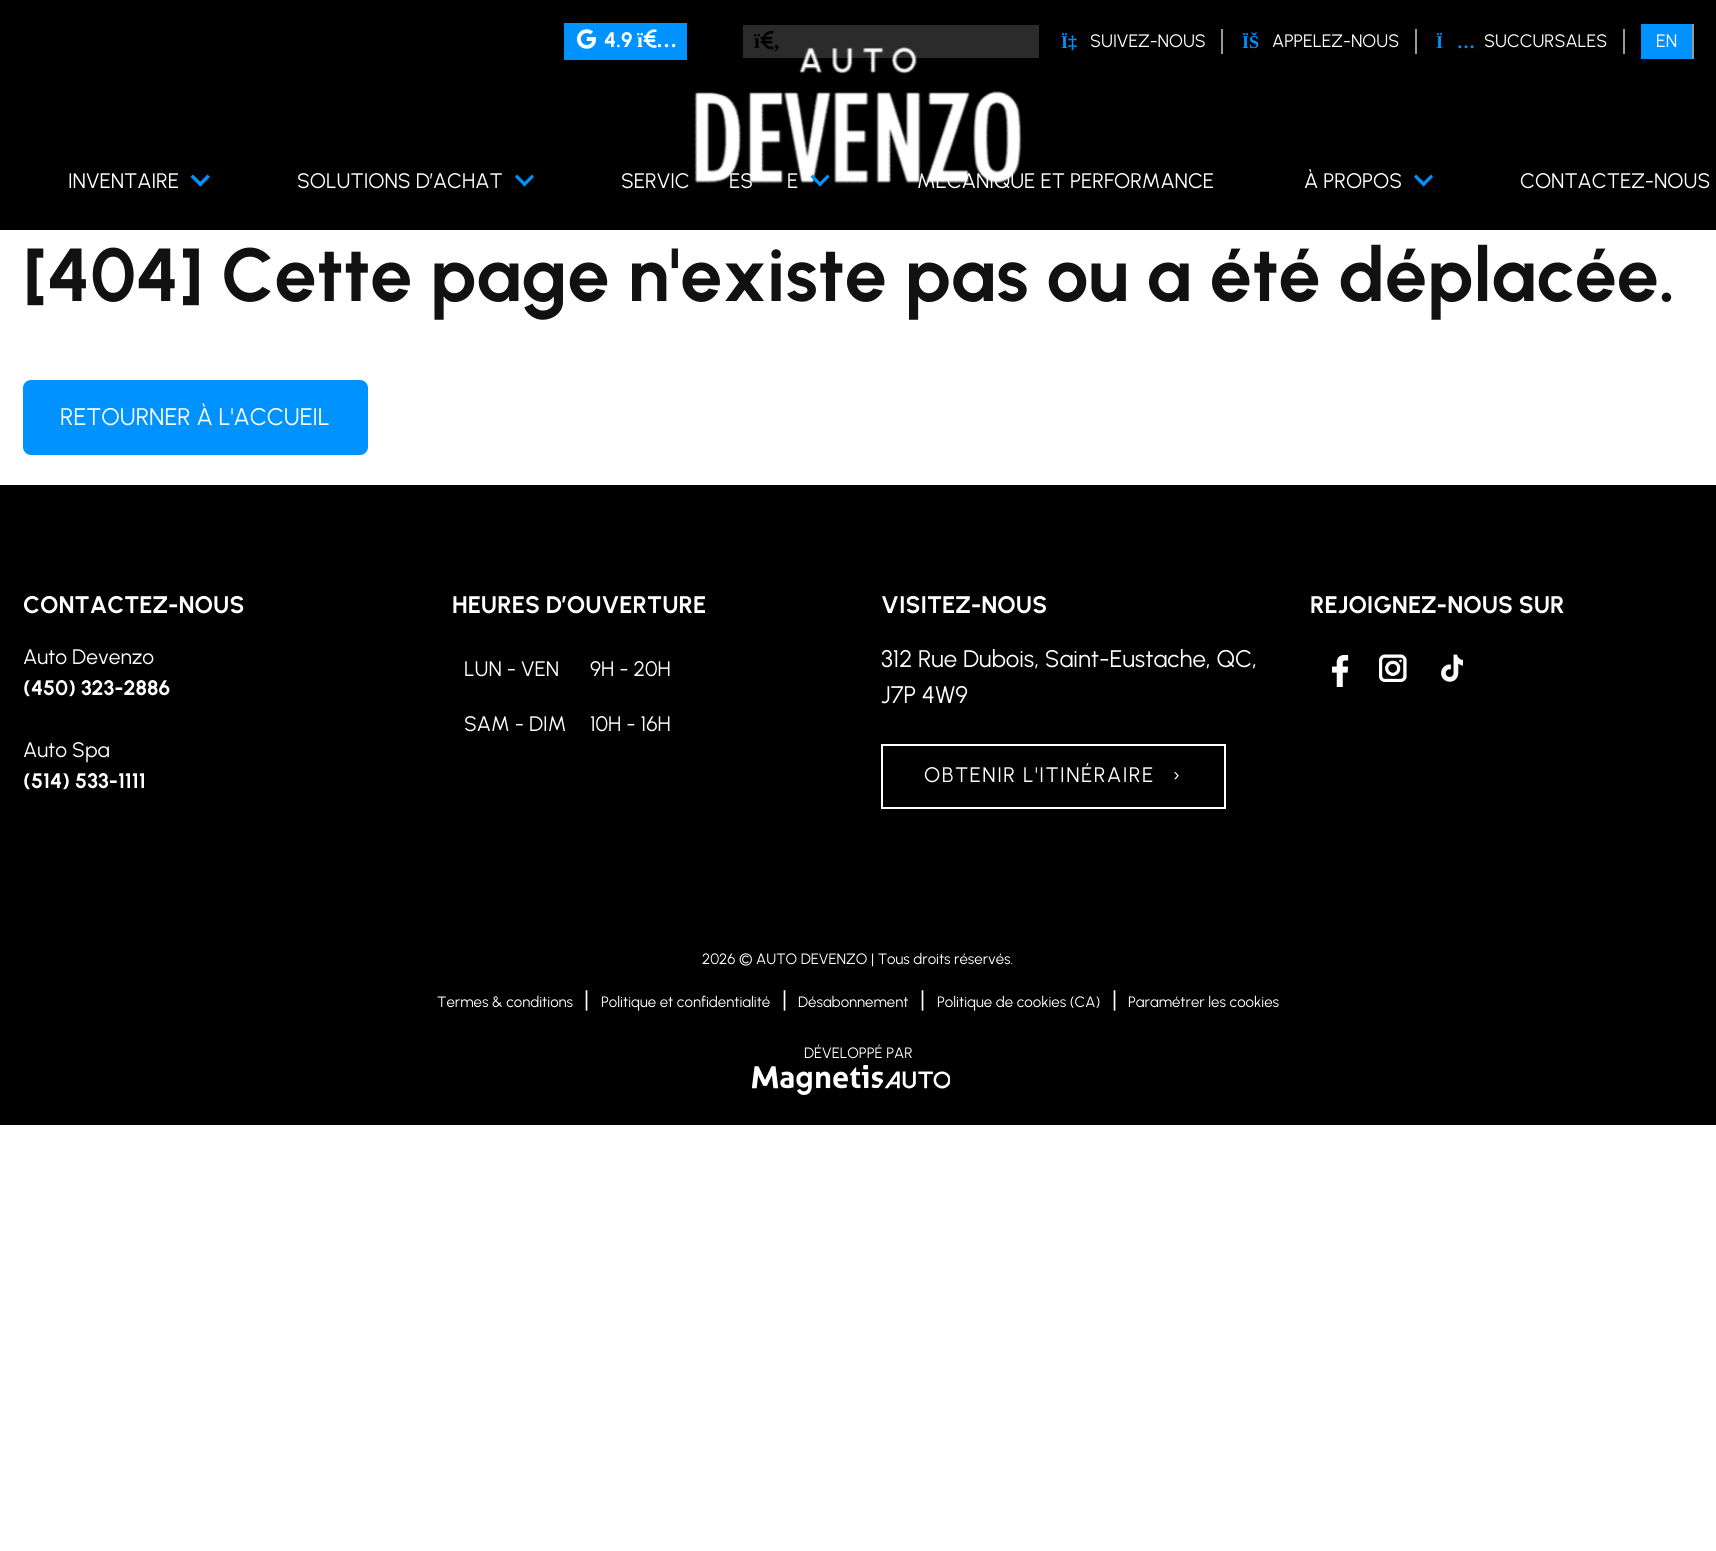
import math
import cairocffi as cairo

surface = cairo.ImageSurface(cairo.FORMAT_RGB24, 1716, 1551)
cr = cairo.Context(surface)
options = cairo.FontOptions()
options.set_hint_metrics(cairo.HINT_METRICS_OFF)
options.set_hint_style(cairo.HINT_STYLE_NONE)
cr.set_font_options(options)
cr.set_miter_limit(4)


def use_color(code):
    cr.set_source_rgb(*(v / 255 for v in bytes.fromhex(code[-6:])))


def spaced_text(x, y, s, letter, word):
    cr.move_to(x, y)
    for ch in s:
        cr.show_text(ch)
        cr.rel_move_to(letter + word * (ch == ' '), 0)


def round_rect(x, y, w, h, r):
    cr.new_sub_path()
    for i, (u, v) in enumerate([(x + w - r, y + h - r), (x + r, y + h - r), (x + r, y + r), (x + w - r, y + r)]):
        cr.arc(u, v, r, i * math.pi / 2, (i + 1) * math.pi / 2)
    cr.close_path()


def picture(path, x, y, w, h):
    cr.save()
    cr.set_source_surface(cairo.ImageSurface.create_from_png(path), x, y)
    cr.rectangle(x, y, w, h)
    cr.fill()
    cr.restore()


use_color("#ffffff")
cr.paint()
use_color("#000000")
cr.rectangle(0, 0, 1716, 230)
cr.fill()
use_color("#0093ff")
cr.rectangle(564, 23, 123, 37)
cr.fill()
picture("img1.png", 576, 29, 21, 20)
cr.select_font_face("Urbanist", cairo.FONT_SLANT_NORMAL, cairo.FONT_WEIGHT_BOLD)
cr.set_font_size(21)
use_color("#ffffff")
cr.move_to(604, 47)
cr.show_text("4.9")
picture("img2.png", 643, 29, 14, 19)
cr.select_font_face("Liberation Serif", cairo.FONT_SLANT_NORMAL, cairo.FONT_WEIGHT_BOLD)
cr.move_to(637, 47)
cr.show_text("ï")
cr.move_to(656, 47)
cr.show_text("…")
use_color("#2b2b2b")
round_rect(742, 24, 298, 35, 0.5)
cr.fill_preserve()
use_color("#000000")
cr.stroke()
picture("img3.png", 760, 31, 14, 19)
cr.move_to(754, 48)
cr.show_text("ï")
cr.move_to(773, 48)
cr.show_text("‚")
use_color("#999999")
cr.rectangle(1221, 29, 2, 25)
cr.fill()
cr.set_font_size(18)
use_color("#0093ff")
cr.move_to(1061, 48)
cr.show_text("Ï‡")
cr.select_font_face("Urbanist")
use_color("#ffffff")
cr.move_to(1090, 47)
cr.show_text("SUIVEZ-NOUS")
use_color("#999999")
cr.rectangle(1415, 29, 2, 25)
cr.fill()
cr.select_font_face("Liberation Serif", cairo.FONT_SLANT_NORMAL, cairo.FONT_WEIGHT_BOLD)
use_color("#0093ff")
cr.move_to(1242, 48)
cr.show_text("ÏŠ")
cr.select_font_face("Urbanist")
use_color("#ffffff")
cr.move_to(1272, 47)
cr.show_text("APPELEZ-NOUS")
use_color("#999999")
cr.rectangle(1623, 29, 2, 25)
cr.fill()
cr.select_font_face("Liberation Serif", cairo.FONT_SLANT_NORMAL, cairo.FONT_WEIGHT_BOLD)
use_color("#0093ff")
cr.move_to(1436, 48)
cr.show_text("Ï")
cr.move_to(1457, 48)
cr.show_text("…")
cr.select_font_face("Urbanist")
use_color("#ffffff")
cr.move_to(1484, 47)
cr.show_text("SUCCURSALES")
use_color("#0093ff")
cr.rectangle(1641, 24, 51, 35)
cr.fill()
use_color("#999999")
cr.rectangle(1692, 24, 2, 35)
cr.fill()
use_color("#ffffff")
cr.move_to(1656, 47)
cr.show_text("EN")
picture("img4.png", 694, 47, 328, 138)
cr.set_font_size(21)
cr.move_to(68, 188)
cr.show_text("INVENTAIRE")
use_color("#0093ff")
cr.new_path()
cr.move_to(207.5, 174.5)
cr.line_to(210, 177)
cr.line_to(200.5, 186.5)
cr.line_to(198, 184)
cr.close_path()
cr.fill()
cr.new_path()
cr.move_to(193, 174.5)
cr.line_to(202.5, 184)
cr.line_to(200.5, 186.5)
cr.line_to(190.5, 177)
cr.close_path()
cr.fill()
use_color("#ffffff")
cr.move_to(297, 188)
cr.show_text("SOLUTIONS D’ACHAT")
use_color("#0093ff")
cr.new_path()
cr.move_to(532, 174.5)
cr.line_to(534, 177)
cr.line_to(524.5, 186.5)
cr.line_to(522.5, 184)
cr.close_path()
cr.fill()
cr.new_path()
cr.move_to(517, 174.5)
cr.line_to(526.5, 184)
cr.line_to(524.5, 186.5)
cr.line_to(515, 177)
cr.close_path()
cr.fill()
use_color("#ffffff")
cr.move_to(621, 188)
cr.show_text("SERVIC")
cr.move_to(729, 188)
cr.show_text("ES")
cr.move_to(787, 188)
cr.show_text("E")
use_color("#0093ff")
cr.new_path()
cr.move_to(827.5, 174.5)
cr.line_to(829.5, 177)
cr.line_to(820, 186.5)
cr.line_to(818, 184)
cr.close_path()
cr.fill()
cr.new_path()
cr.move_to(812.5, 174.5)
cr.line_to(822, 184)
cr.line_to(820, 186.5)
cr.line_to(810.5, 177)
cr.close_path()
cr.fill()
use_color("#ffffff")
cr.move_to(917, 188)
cr.show_text("MÉCANIQUE ET PERFORMANCE")
cr.move_to(1304, 188)
cr.show_text("À PROPOS")
use_color("#0093ff")
cr.new_path()
cr.move_to(1431, 174.5)
cr.line_to(1433, 177)
cr.line_to(1423.5, 186.5)
cr.line_to(1421.5, 184)
cr.close_path()
cr.fill()
cr.new_path()
cr.move_to(1416, 174.5)
cr.line_to(1426, 184)
cr.line_to(1423.5, 186.5)
cr.line_to(1414, 177)
cr.close_path()
cr.fill()
use_color("#ffffff")
cr.move_to(1520, 188)
cr.show_text("CONTACTEZ-NOUS")
cr.select_font_face("Urbanist", cairo.FONT_SLANT_NORMAL, cairo.FONT_WEIGHT_BOLD)
cr.set_font_size(75)
use_color("#111111")
cr.move_to(23, 301)
cr.show_text("[404] Cette page n'existe pas ou a été déplacée.")
use_color("#0093ff")
round_rect(23, 380, 345, 75, 8)
cr.fill()
cr.select_font_face("Urbanist")
cr.set_font_size(24)
use_color("#ffffff")
cr.move_to(60, 425)
cr.show_text("RETOURNER À L'ACCUEIL")
use_color("#000000")
cr.rectangle(0, 485, 1716, 640)
cr.fill()
cr.select_font_face("Urbanist", cairo.FONT_SLANT_NORMAL, cairo.FONT_WEIGHT_BOLD)
use_color("#ffffff")
cr.move_to(23, 613)
cr.show_text("CONTACTEZ-NOUS")
cr.select_font_face("Urbanist")
cr.set_font_size(21)
cr.move_to(23, 664)
cr.show_text("Auto Devenzo")
cr.select_font_face("Urbanist", cairo.FONT_SLANT_NORMAL, cairo.FONT_WEIGHT_BOLD)
cr.move_to(23, 695)
cr.show_text("(450) 323-2886")
cr.select_font_face("Urbanist")
cr.move_to(23, 757)
cr.show_text("Auto Spa")
cr.select_font_face("Urbanist", cairo.FONT_SLANT_NORMAL, cairo.FONT_WEIGHT_BOLD)
cr.move_to(23, 788)
cr.show_text("(514) 533-1111")
cr.set_font_size(24)
cr.move_to(452, 613)
cr.show_text("HEURES D’OUVERTURE")
cr.select_font_face("Urbanist")
cr.set_font_size(21)
cr.move_to(464, 676)
cr.show_text("LUN - VEN")
cr.move_to(590, 676)
cr.show_text("9H - 20H")
cr.move_to(464, 731)
cr.show_text("SAM - DIM")
cr.move_to(590, 731)
cr.show_text("10H - 16H")
cr.select_font_face("Urbanist", cairo.FONT_SLANT_NORMAL, cairo.FONT_WEIGHT_BOLD)
cr.set_font_size(24)
cr.move_to(881, 613)
cr.show_text("VISITEZ-NOUS")
cr.select_font_face("Urbanist")
cr.move_to(881, 667)
cr.show_text("312 Rue Dubois, Saint-Eustache, QC,")
cr.move_to(881, 703)
cr.show_text("J7P 4W9")
cr.rectangle(882, 745, 343, 63)
cr.stroke()
cr.set_font_size(21)
spaced_text(924, 782, "OBTENIR L'ITINÉRAIRE", 1.5, 0)
spaced_text(1173, 782, "›", 1.5, 0)
cr.select_font_face("Urbanist", cairo.FONT_SLANT_NORMAL, cairo.FONT_WEIGHT_BOLD)
cr.set_font_size(24)
cr.move_to(1310, 613)
cr.show_text("REJOIGNEZ-NOUS SUR")
picture("img5.png", 1332, 655, 17, 32)
picture("img6.png", 1379, 654, 28, 28)
picture("img7.png", 1441, 654, 22, 28)
cr.select_font_face("Urbanist")
cr.set_font_size(15)
cr.move_to(702, 964)
cr.show_text("2026 © AUTO DEVENZO | Tous droits réservés.")
cr.move_to(437, 1007)
cr.show_text("Termes & conditions")
cr.set_font_size(24)
cr.move_to(584, 1007)
cr.show_text("|")
cr.set_font_size(15)
cr.move_to(601, 1007)
cr.show_text("Politique et confidentialité")
cr.set_font_size(24)
cr.move_to(782, 1007)
cr.show_text("|")
cr.set_font_size(15)
cr.move_to(798, 1007)
cr.show_text("Désabonnement")
cr.set_font_size(24)
cr.move_to(920, 1007)
cr.show_text("|")
cr.set_font_size(15)
cr.move_to(937, 1007)
cr.show_text("Politique de cookies (CA)")
cr.set_font_size(24)
cr.move_to(1112, 1007)
cr.show_text("|")
cr.set_font_size(15)
cr.move_to(1128, 1007)
cr.show_text("Paramétrer les cookies")
cr.move_to(804, 1058)
cr.show_text("DÉVELOPPÉ PAR")
picture("img8.png", 752, 1065, 198, 30)
surface.write_to_png("result.png")
